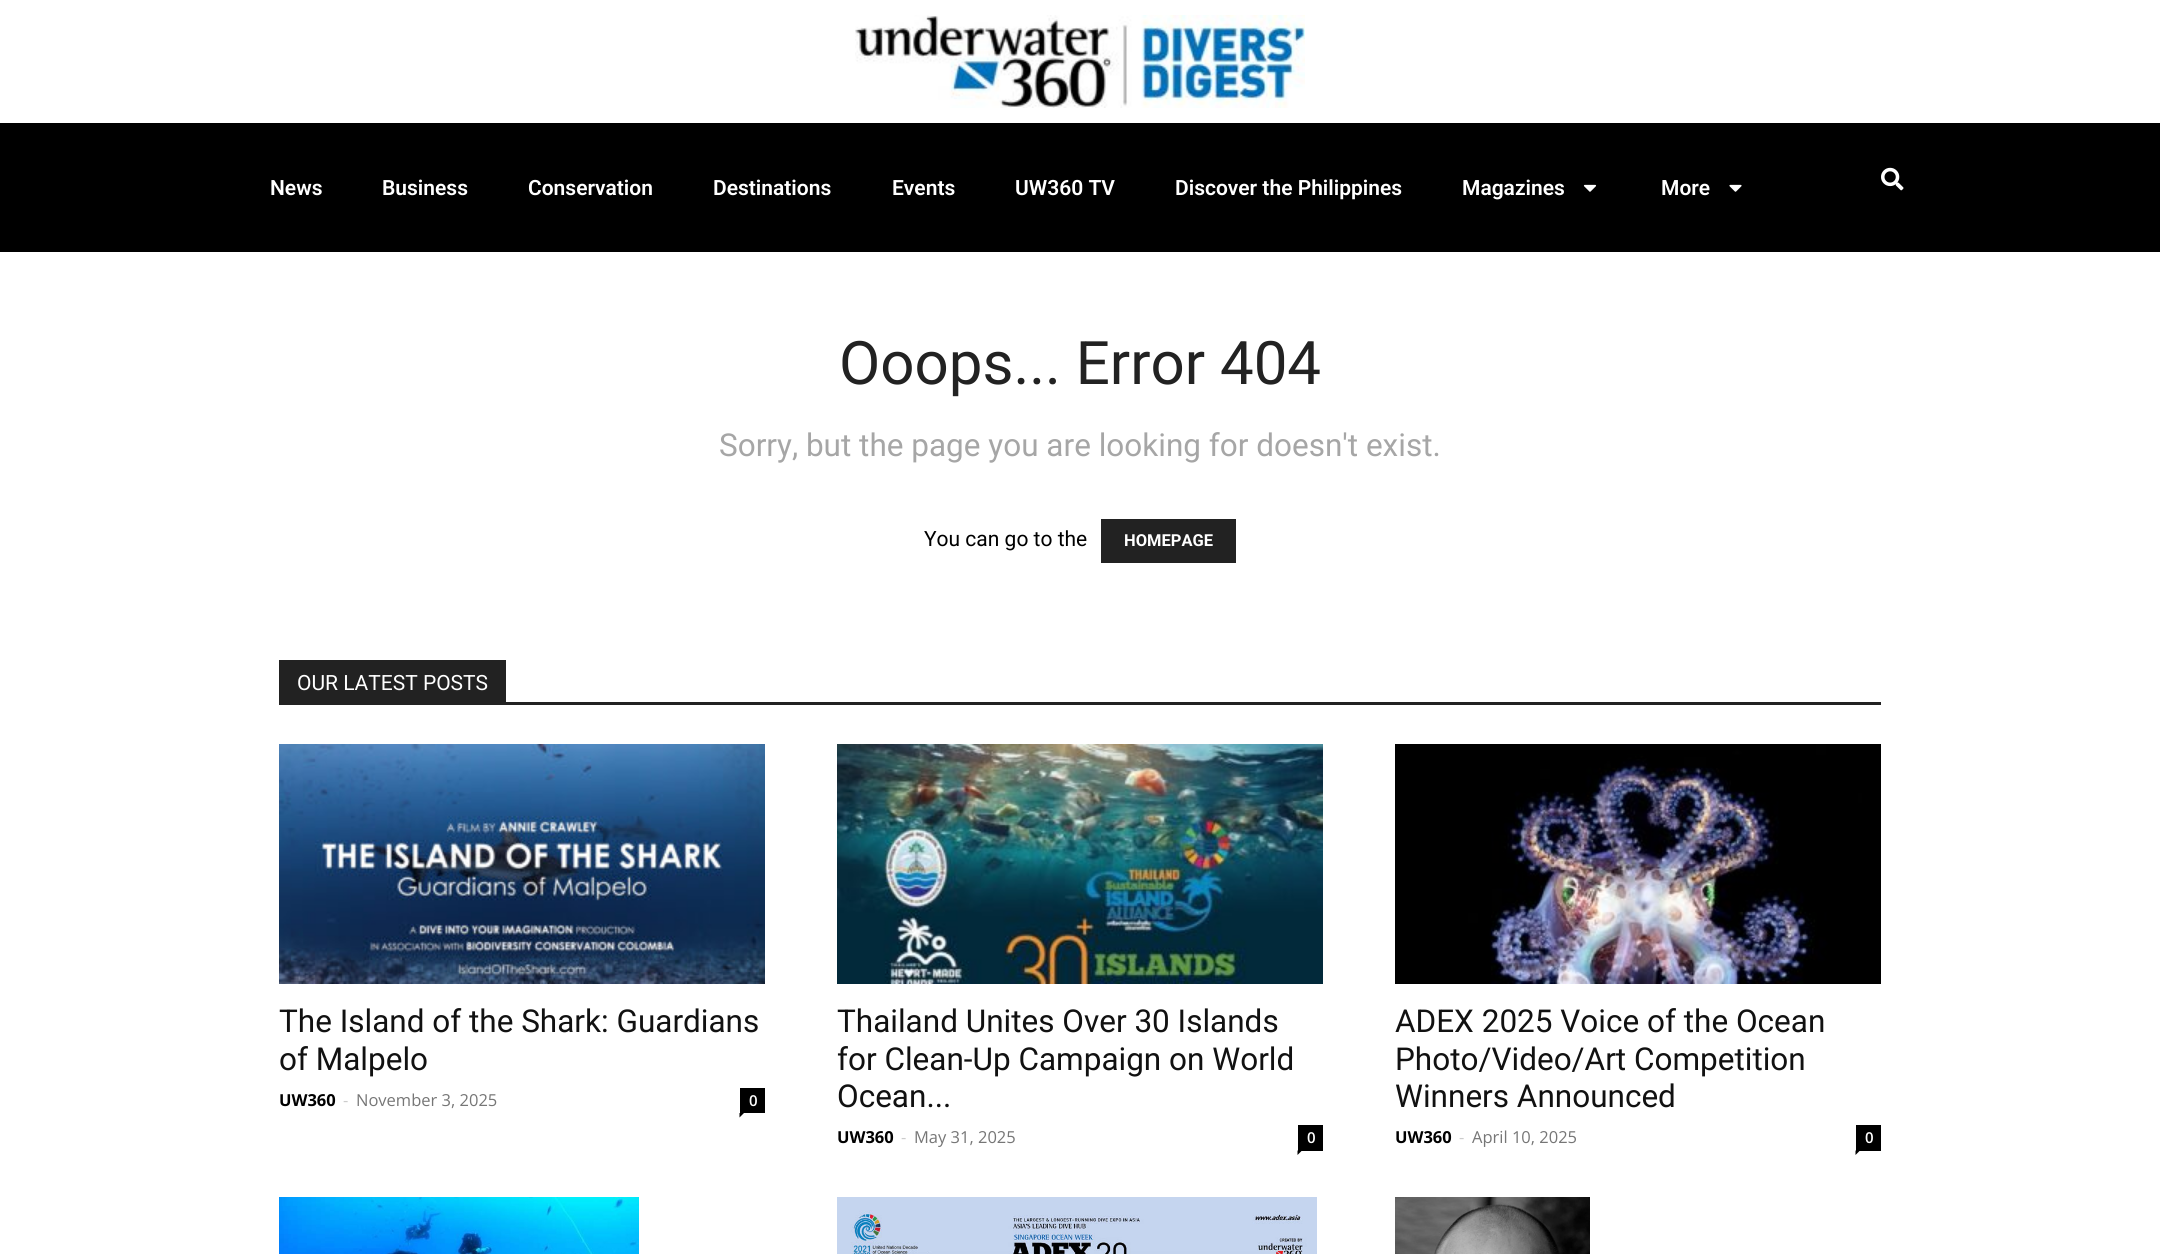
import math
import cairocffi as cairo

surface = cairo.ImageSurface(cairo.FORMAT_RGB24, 2160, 1254)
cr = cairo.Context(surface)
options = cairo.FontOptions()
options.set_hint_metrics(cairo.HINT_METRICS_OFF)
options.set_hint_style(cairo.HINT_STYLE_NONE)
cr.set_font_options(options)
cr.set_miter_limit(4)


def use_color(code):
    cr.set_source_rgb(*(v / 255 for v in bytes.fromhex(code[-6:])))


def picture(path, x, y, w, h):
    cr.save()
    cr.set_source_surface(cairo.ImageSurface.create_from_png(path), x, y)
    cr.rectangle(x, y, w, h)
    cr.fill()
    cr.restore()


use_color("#ffffff")
cr.paint()
picture("img1.png", 855, 15, 450, 93)
use_color("#000000")
cr.rectangle(0, 123, 2160, 129)
cr.fill()
cr.select_font_face("Roboto SemiBold")
cr.set_font_size(21)
use_color("#ffffff")
cr.move_to(270, 195)
cr.show_text("News")
cr.move_to(382, 195)
cr.show_text("Business")
cr.move_to(528, 195)
cr.show_text("Conservation")
cr.move_to(713, 195)
cr.show_text("Destinations")
cr.move_to(892, 195)
cr.show_text("Events")
cr.move_to(1015, 195)
cr.show_text("UW360 TV")
cr.move_to(1175, 195)
cr.show_text("Discover the Philippines")
cr.move_to(1462, 195)
cr.show_text("Magazines")
picture("img2.png", 1583, 184, 14, 8)
cr.move_to(1661, 195)
cr.show_text("More")
picture("img3.png", 1729, 184, 13, 8)
picture("img4.png", 1881, 167, 23, 24)
cr.select_font_face("Roboto")
cr.set_font_size(60)
use_color("#222222")
cr.move_to(839, 384)
cr.show_text("Ooops... Error 404")
cr.set_font_size(31.5)
use_color("#a6a6a6")
cr.move_to(719, 456)
cr.show_text("Sorry, but the page you are looking for doesn't exist.")
cr.set_font_size(21)
use_color("#000000")
cr.move_to(924, 546)
cr.show_text("You can go to the")
use_color("#222222")
cr.rectangle(1101, 519, 135, 44)
cr.fill()
cr.select_font_face("Roboto", cairo.FONT_SLANT_NORMAL, cairo.FONT_WEIGHT_BOLD)
cr.set_font_size(16.5)
use_color("#ffffff")
cr.move_to(1124, 546)
cr.show_text("HOMEPAGE")
use_color("#222222")
cr.rectangle(279, 702, 1602, 3)
cr.fill()
cr.rectangle(279, 660, 227, 42)
cr.fill()
cr.select_font_face("Roboto")
cr.set_font_size(21)
use_color("#ffffff")
cr.move_to(297, 690)
cr.show_text("OUR LATEST POSTS")
picture("img5.png", 279, 744, 486, 240)
cr.set_font_size(31.5)
use_color("#111111")
cr.move_to(279, 1032)
cr.show_text("The Island of the Shark: Guardians")
cr.move_to(279, 1070)
cr.show_text("of Malpelo")
cr.select_font_face("Open Sans", cairo.FONT_SLANT_NORMAL, cairo.FONT_WEIGHT_BOLD)
cr.set_font_size(16.5)
use_color("#000000")
cr.move_to(279, 1106)
cr.show_text("UW360")
cr.select_font_face("Open Sans")
use_color("#cccccc")
cr.move_to(343, 1106)
cr.show_text("-")
use_color("#767676")
cr.move_to(356, 1106)
cr.show_text("November 3, 2025")
use_color("#000000")
cr.rectangle(740, 1088, 25, 25)
cr.fill()
cr.select_font_face("Open Sans SemiBold")
cr.set_font_size(15)
use_color("#ffffff")
cr.move_to(749, 1106)
cr.show_text("0")
use_color("#000000")
cr.new_path()
cr.move_to(739.5, 1113)
cr.line_to(744, 1113)
cr.line_to(739.5, 1117.5)
cr.close_path()
cr.fill()
picture("img6.png", 837, 744, 486, 240)
cr.select_font_face("Roboto")
cr.set_font_size(31.5)
use_color("#111111")
cr.move_to(837, 1032)
cr.show_text("Thailand Unites Over 30 Islands")
cr.move_to(837, 1070)
cr.show_text("for Clean-Up Campaign on World")
cr.move_to(837, 1107)
cr.show_text("Ocean...")
cr.select_font_face("Open Sans", cairo.FONT_SLANT_NORMAL, cairo.FONT_WEIGHT_BOLD)
cr.set_font_size(16.5)
use_color("#000000")
cr.move_to(837, 1143)
cr.show_text("UW360")
cr.select_font_face("Open Sans")
use_color("#cccccc")
cr.move_to(901, 1143)
cr.show_text("-")
use_color("#767676")
cr.move_to(914, 1143)
cr.show_text("May 31, 2025")
use_color("#000000")
cr.rectangle(1298, 1125, 25, 26)
cr.fill()
cr.select_font_face("Open Sans SemiBold")
cr.set_font_size(15)
use_color("#ffffff")
cr.move_to(1307, 1143)
cr.show_text("0")
use_color("#000000")
cr.new_path()
cr.move_to(1297.5, 1150.5)
cr.line_to(1302, 1150.5)
cr.line_to(1297.5, 1155)
cr.close_path()
cr.fill()
picture("img7.png", 1395, 744, 486, 240)
cr.select_font_face("Roboto")
cr.set_font_size(31.5)
use_color("#111111")
cr.move_to(1395, 1032)
cr.show_text("ADEX 2025 Voice of the Ocean")
cr.move_to(1395, 1070)
cr.show_text("Photo/Video/Art Competition")
cr.move_to(1395, 1107)
cr.show_text("Winners Announced")
cr.select_font_face("Open Sans", cairo.FONT_SLANT_NORMAL, cairo.FONT_WEIGHT_BOLD)
cr.set_font_size(16.5)
use_color("#000000")
cr.move_to(1395, 1143)
cr.show_text("UW360")
cr.select_font_face("Open Sans")
use_color("#cccccc")
cr.move_to(1459, 1143)
cr.show_text("-")
use_color("#767676")
cr.move_to(1472, 1143)
cr.show_text("April 10, 2025")
use_color("#000000")
cr.rectangle(1856, 1125, 25, 26)
cr.fill()
cr.select_font_face("Open Sans SemiBold")
cr.set_font_size(15)
use_color("#ffffff")
cr.move_to(1865, 1143)
cr.show_text("0")
use_color("#000000")
cr.new_path()
cr.move_to(1855.5, 1150.5)
cr.line_to(1860, 1150.5)
cr.line_to(1855.5, 1155)
cr.close_path()
cr.fill()
picture("img8.png", 279, 1197, 360, 57)
picture("img9.png", 837, 1197, 480, 57)
picture("img10.png", 1395, 1197, 195, 57)
surface.write_to_png("result.png")
